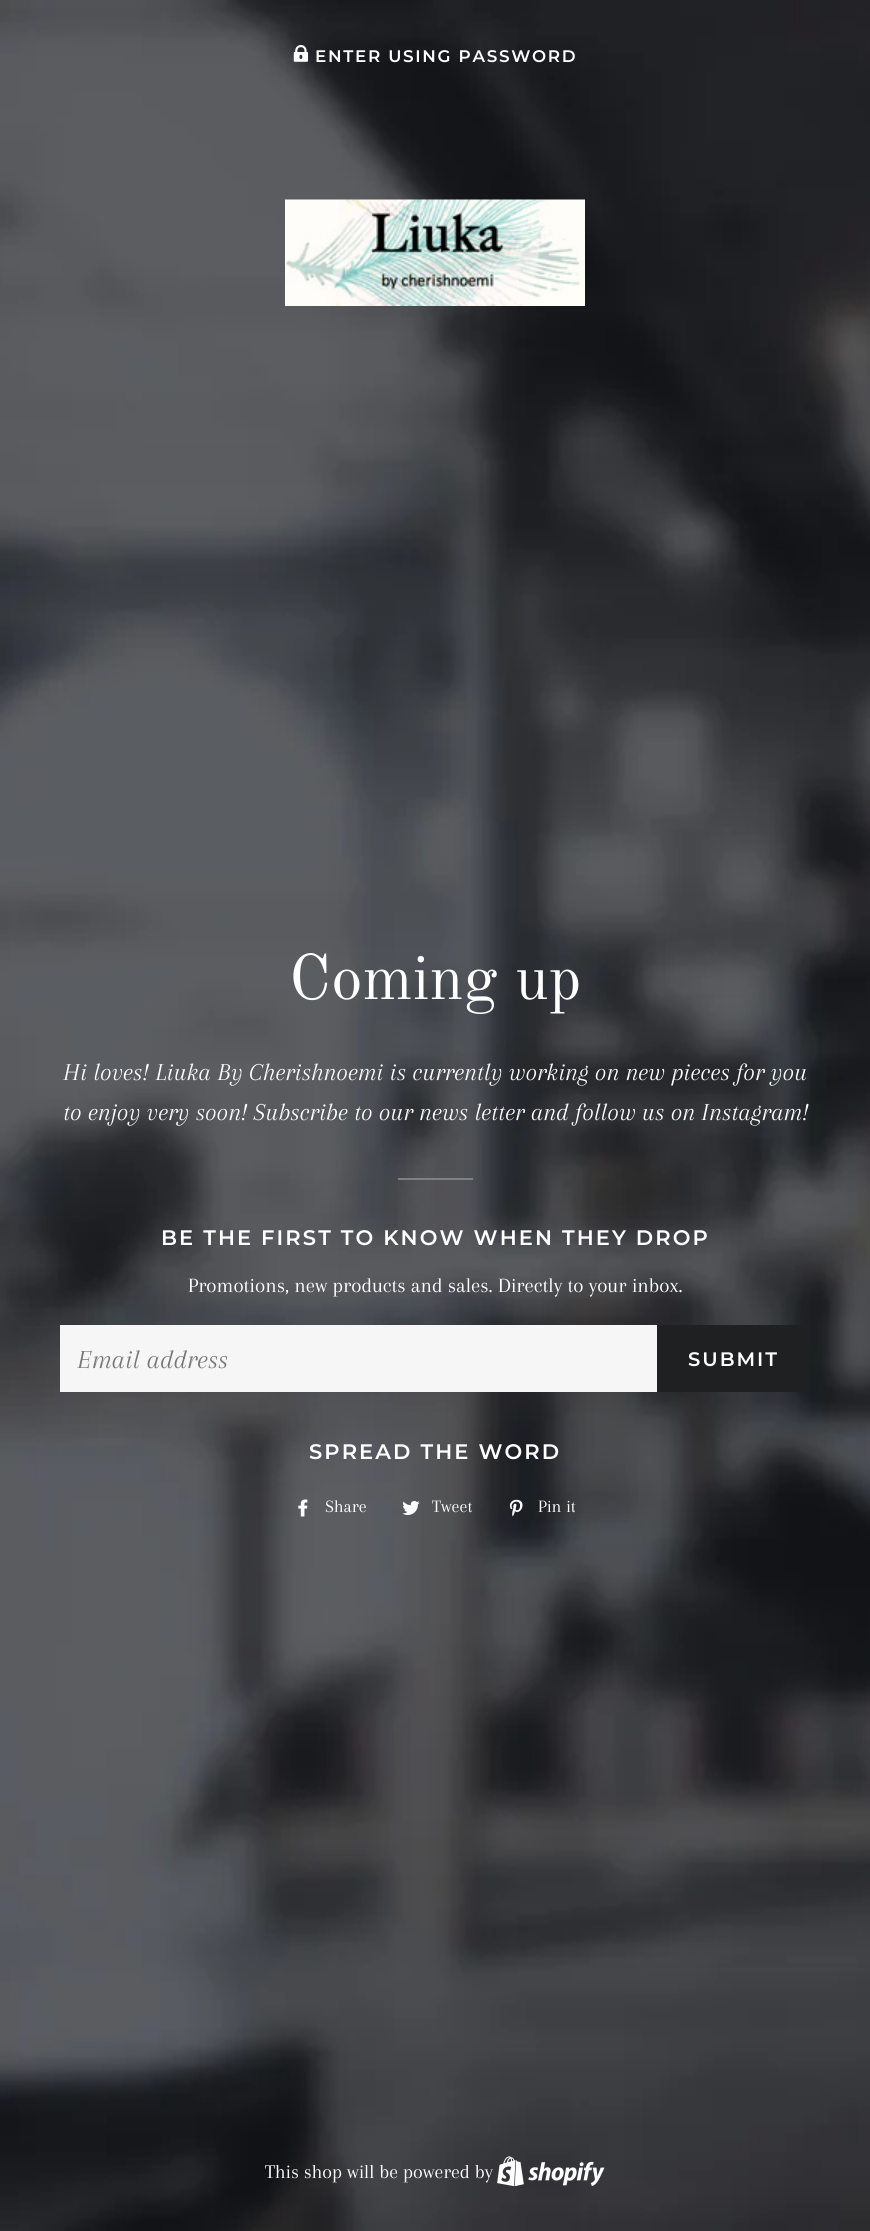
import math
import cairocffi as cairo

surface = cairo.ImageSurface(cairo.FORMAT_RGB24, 870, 2231)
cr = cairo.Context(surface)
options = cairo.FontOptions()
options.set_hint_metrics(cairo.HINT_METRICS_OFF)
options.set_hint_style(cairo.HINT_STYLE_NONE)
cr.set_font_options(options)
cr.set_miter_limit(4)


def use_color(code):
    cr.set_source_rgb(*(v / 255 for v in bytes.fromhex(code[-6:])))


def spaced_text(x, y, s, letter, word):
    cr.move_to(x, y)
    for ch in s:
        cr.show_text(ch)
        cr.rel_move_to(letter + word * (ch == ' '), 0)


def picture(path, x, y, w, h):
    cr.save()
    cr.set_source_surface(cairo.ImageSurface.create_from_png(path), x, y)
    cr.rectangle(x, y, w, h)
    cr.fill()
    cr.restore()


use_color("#ffffff")
cr.paint()
picture("img1.png", 0, 0, 870, 2231)
picture("img2.png", 293, 45, 16, 17)
cr.select_font_face("Montserrat SemiBold")
cr.set_font_size(16.75)
use_color("#ffffff")
spaced_text(315, 62, "ENTER USING PASSWORD", 1.7, 0)
picture("img3.png", 285, 199, 300, 107)
cr.select_font_face("Old Standard TT")
cr.set_font_size(63)
cr.move_to(289, 999)
cr.show_text("Coming up")
cr.select_font_face("Arapey", cairo.FONT_SLANT_ITALIC)
cr.set_font_size(25.2)
cr.move_to(63, 1080)
cr.show_text("Hi loves! Liuka By Cherishnoemi is currently working on new pieces for you")
cr.move_to(63, 1120)
cr.show_text("to enjoy very soon! Subscribe to our news letter and follow us on Instagram!")
use_color("#808080")
cr.rectangle(398, 1178, 75, 2)
cr.fill()
cr.select_font_face("Montserrat SemiBold")
cr.set_font_size(21)
use_color("#ffffff")
spaced_text(161, 1245, "BE THE FIRST TO KNOW WHEN THEY DROP", 2.1, 0)
cr.select_font_face("Arapey")
cr.move_to(188, 1292)
cr.show_text("Promotions, new products and sales. Directly to your inbox.")
use_color("#f6f6f6")
cr.rectangle(60, 1325, 597, 67)
cr.fill()
cr.select_font_face("Arapey", cairo.FONT_SLANT_ITALIC)
cr.set_font_size(27)
use_color("#757676")
cr.move_to(77, 1368)
cr.show_text("Email address")
use_color("#1f2021")
cr.rectangle(657, 1325, 153, 67)
cr.fill()
cr.select_font_face("Montserrat SemiBold")
cr.set_font_size(19.5)
use_color("#ffffff")
spaced_text(688, 1366, "SUBMIT", 2, 0)
cr.set_font_size(21)
spaced_text(309, 1459, "SPREAD THE WORD", 2.1, 0)
picture("img4.png", 298, 1499, 10, 18)
cr.select_font_face("Arapey")
cr.set_font_size(18)
cr.move_to(325, 1512)
cr.show_text("Share")
picture("img5.png", 402, 1500, 18, 15)
cr.move_to(432, 1512)
cr.show_text("Tweet")
picture("img6.png", 509, 1499, 14, 18)
cr.move_to(538, 1512)
cr.show_text("Pin it")
cr.set_font_size(20)
cr.move_to(265, 2178)
cr.show_text("This shop will be powered by")
picture("img7.png", 497, 2156, 108, 31)
surface.write_to_png("result.png")
